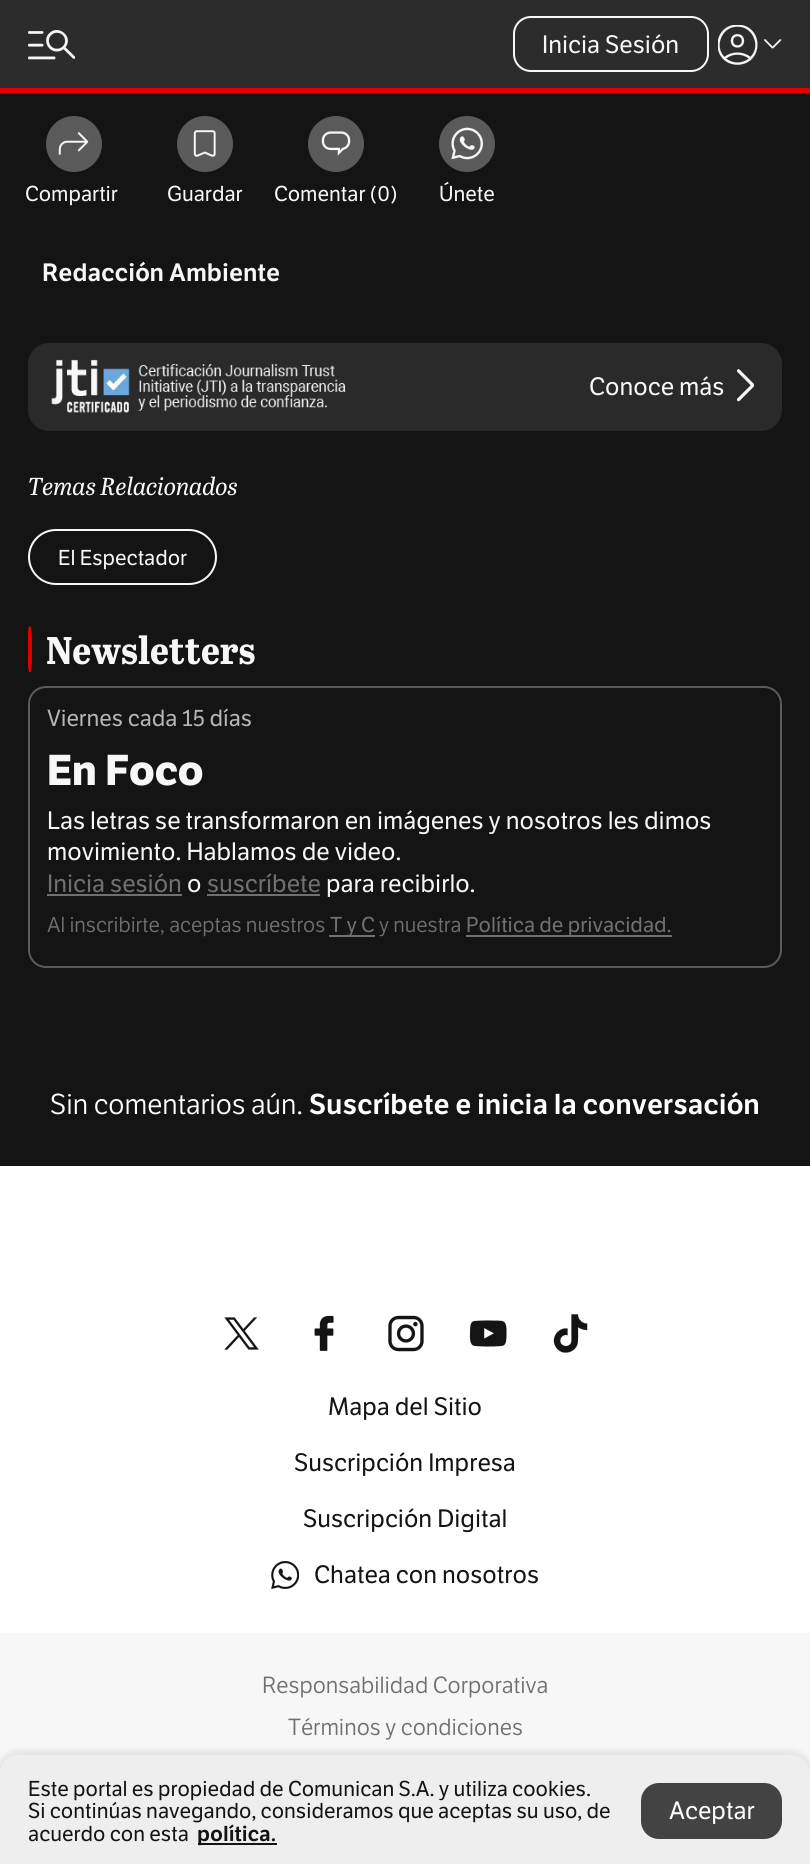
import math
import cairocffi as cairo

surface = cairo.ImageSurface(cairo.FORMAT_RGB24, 810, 1864)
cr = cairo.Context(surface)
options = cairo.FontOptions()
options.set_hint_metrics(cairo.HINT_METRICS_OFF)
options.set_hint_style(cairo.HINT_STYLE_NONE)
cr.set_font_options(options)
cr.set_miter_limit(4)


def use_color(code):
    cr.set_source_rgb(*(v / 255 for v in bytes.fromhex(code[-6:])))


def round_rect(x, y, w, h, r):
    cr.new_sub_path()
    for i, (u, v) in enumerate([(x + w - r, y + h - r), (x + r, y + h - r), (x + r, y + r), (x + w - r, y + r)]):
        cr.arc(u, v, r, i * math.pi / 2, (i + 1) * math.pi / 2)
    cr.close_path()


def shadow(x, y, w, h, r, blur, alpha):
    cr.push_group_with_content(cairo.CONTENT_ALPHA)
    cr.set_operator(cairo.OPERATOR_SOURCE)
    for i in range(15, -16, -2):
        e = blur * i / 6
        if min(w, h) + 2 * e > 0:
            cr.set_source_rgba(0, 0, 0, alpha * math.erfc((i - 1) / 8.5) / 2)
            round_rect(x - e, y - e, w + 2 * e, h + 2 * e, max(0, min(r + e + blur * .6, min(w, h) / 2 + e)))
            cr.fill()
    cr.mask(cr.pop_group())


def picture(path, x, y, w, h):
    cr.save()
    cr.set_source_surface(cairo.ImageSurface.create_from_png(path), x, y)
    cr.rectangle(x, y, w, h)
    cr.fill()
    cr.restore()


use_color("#141414")
cr.paint()
use_color("#2c2c2c")
cr.rectangle(0, 0, 810, 88)
cr.fill()
picture("img1.png", 28, 30, 47, 30)
round_rect(514, 17, 194, 54, 17)
use_color("#f7f7f7")
cr.stroke()
cr.select_font_face("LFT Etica")
cr.set_font_size(24.5)
cr.move_to(542, 53)
cr.show_text("Inicia Sesión")
picture("img2.png", 718, 25, 40, 40)
picture("img3.png", 764, 39, 18, 10)
use_color("#e00000")
cr.rectangle(0, 88, 810, 5)
cr.fill()
use_color("#5a5a5a")
cr.arc(74, 144, 28, 0, 2 * math.pi)
cr.fill()
picture("img4.png", 58, 132, 31, 23)
cr.set_font_size(21)
use_color("#f7f7f7")
cr.move_to(25, 201)
cr.show_text("Compartir")
use_color("#5a5a5a")
cr.new_path()
cr.arc(205, 144, 28, 0, 2 * math.pi)
cr.fill()
picture("img5.png", 193, 130, 23, 27)
use_color("#f7f7f7")
cr.move_to(167, 201)
cr.show_text("Guardar")
use_color("#5a5a5a")
cr.new_path()
cr.arc(336, 144, 28, 0, 2 * math.pi)
cr.fill()
picture("img6.png", 321, 131, 30, 25)
use_color("#f7f7f7")
cr.move_to(274, 201)
cr.show_text("Comentar (0)")
use_color("#5a5a5a")
cr.new_path()
cr.arc(467, 144, 22.5, 0, 2 * math.pi)
cr.fill_preserve()
cr.set_line_width(11)
cr.stroke()
picture("img7.png", 451, 127, 32, 33)
use_color("#f7f7f7")
cr.move_to(439, 201)
cr.show_text("Únete")
cr.select_font_face("LFT Etica SemiBold")
cr.set_font_size(24.5)
cr.move_to(42, 281)
cr.show_text("Redacción Ambiente")
use_color("#2a2a2a")
round_rect(28, 343, 754, 88, 21)
cr.fill()
picture("img8.png", 51, 359, 295, 54)
cr.select_font_face("LFT Etica")
use_color("#f7f7f7")
cr.move_to(589, 395)
cr.show_text("Conoce más")
picture("img9.png", 737, 369, 17, 33)
cr.select_font_face("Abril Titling", cairo.FONT_SLANT_ITALIC)
cr.move_to(28, 495)
cr.show_text("Temas Relacionados")
round_rect(29, 530, 187, 54, 27)
cr.set_line_width(2)
cr.stroke()
cr.select_font_face("LFT Etica")
cr.set_font_size(21)
cr.move_to(58, 565)
cr.show_text("El Espectador")
use_color("#e00000")
cr.new_path()
cr.move_to(29, 626)
cr.line_to(31, 627)
cr.curve_to(32, 631, 32, 645, 32, 649)
cr.curve_to(32, 653, 32, 668, 31, 672)
cr.line_to(29, 672)
cr.line_to(28, 666)
cr.line_to(28, 632)
cr.close_path()
cr.fill()
cr.select_font_face("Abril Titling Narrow", cairo.FONT_SLANT_NORMAL, cairo.FONT_WEIGHT_BOLD)
cr.set_font_size(38.5)
use_color("#f7f7f7")
cr.move_to(46, 664)
cr.show_text("Newsletters")
round_rect(29, 687, 752, 280, 17)
use_color("#5a5a5a")
cr.stroke()
cr.select_font_face("LFT Etica")
cr.set_font_size(22.75)
use_color("#b5b5b5")
cr.move_to(47, 726)
cr.show_text("Viernes cada 15 días")
cr.select_font_face("LFT Etica", cairo.FONT_SLANT_NORMAL, cairo.FONT_WEIGHT_BOLD)
cr.set_font_size(42)
use_color("#f7f7f7")
cr.move_to(47, 785)
cr.show_text("En Foco")
cr.select_font_face("LFT Etica")
cr.set_font_size(24.5)
cr.move_to(47, 829)
cr.show_text("Las letras se transformaron en imágenes y nosotros les dimos")
cr.move_to(47, 860)
cr.show_text("movimiento. Hablamos de video.")
use_color("#707070")
cr.move_to(47, 892)
cr.show_text("Inicia sesión")
cr.rectangle(47, 894, 135, 2)
cr.fill()
use_color("#f7f7f7")
cr.move_to(187, 892)
cr.show_text("o")
use_color("#707070")
cr.move_to(207, 892)
cr.show_text("suscríbete")
cr.rectangle(207, 894, 113, 2)
cr.fill()
use_color("#f7f7f7")
cr.move_to(326, 892)
cr.show_text("para recibirlo.")
cr.select_font_face("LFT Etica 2")
cr.set_font_size(21)
use_color("#707070")
cr.move_to(47, 932)
cr.show_text("Al inscribirte, aceptas nuestros")
cr.rectangle(329, 935, 46, 2)
cr.fill()
cr.select_font_face("LFT Etica")
cr.move_to(330, 932)
cr.show_text("T y C")
cr.select_font_face("LFT Etica 2")
cr.move_to(379, 932)
cr.show_text("y nuestra")
cr.rectangle(466, 935, 206, 2)
cr.fill()
cr.select_font_face("LFT Etica")
cr.move_to(466, 932)
cr.show_text("Política de privacidad.")
cr.select_font_face("LFT Etica 2")
cr.set_font_size(28)
use_color("#ffffff")
cr.move_to(50, 1114)
cr.show_text("Sin comentarios aún.")
cr.select_font_face("LFT Etica SemiBold")
cr.move_to(309, 1114)
cr.show_text("Suscríbete e inicia la conversación")
cr.rectangle(0, 1166, 810, 467)
cr.fill()
picture("img10.png", 224, 1317, 35, 33)
picture("img11.png", 314, 1315, 20, 36)
picture("img12.png", 388, 1315, 36, 37)
picture("img13.png", 469, 1320, 38, 27)
picture("img14.png", 553, 1314, 35, 39)
cr.select_font_face("LFT Etica")
cr.set_font_size(24.5)
use_color("#141414")
cr.move_to(328, 1415)
cr.show_text("Mapa del Sitio")
cr.move_to(294, 1471)
cr.show_text("Suscripción Impresa")
cr.move_to(303, 1527)
cr.show_text("Suscripción Digital")
picture("img15.png", 271, 1561, 28, 28)
cr.move_to(314, 1583)
cr.show_text("Chatea con nosotros")
use_color("#f7f7f7")
cr.rectangle(0, 1633, 810, 140)
cr.fill()
cr.select_font_face("LFT Etica 2")
cr.set_font_size(22.75)
use_color("#707070")
cr.move_to(262, 1693)
cr.show_text("Responsabilidad Corporativa")
cr.move_to(288, 1735)
cr.show_text("Términos y condiciones")
use_color("#000000")
shadow(0, 1754, 810, 110, 18, 5, 0.16)
use_color("#eeeeee")
cr.new_path()
cr.move_to(18, 1755)
cr.line_to(792, 1755)
cr.curve_to(802, 1755, 810, 1763, 810, 1773)
cr.line_to(810, 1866)
cr.line_to(0, 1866)
cr.line_to(0, 1773)
cr.curve_to(0, 1763, 8, 1755, 18, 1755)
cr.close_path()
cr.fill()
cr.select_font_face("LFT Etica")
cr.set_font_size(21)
use_color("#141414")
cr.move_to(28, 1796)
cr.show_text("Este portal es propiedad de Comunican S.A. y utiliza cookies.")
cr.move_to(28, 1818)
cr.show_text("Si continúas navegando, consideramos que aceptas su uso, de")
cr.move_to(28, 1841)
cr.show_text("acuerdo con esta")
cr.rectangle(198, 1843, 79, 2)
cr.fill()
cr.select_font_face("LFT Etica SemiBold")
cr.move_to(197, 1841)
cr.show_text("política.")
use_color("#434343")
round_rect(641, 1783, 141, 56, 18)
cr.fill()
cr.select_font_face("LFT Etica")
cr.set_font_size(24.5)
use_color("#ffffff")
cr.move_to(669, 1819)
cr.show_text("Aceptar")
surface.write_to_png("result.png")
